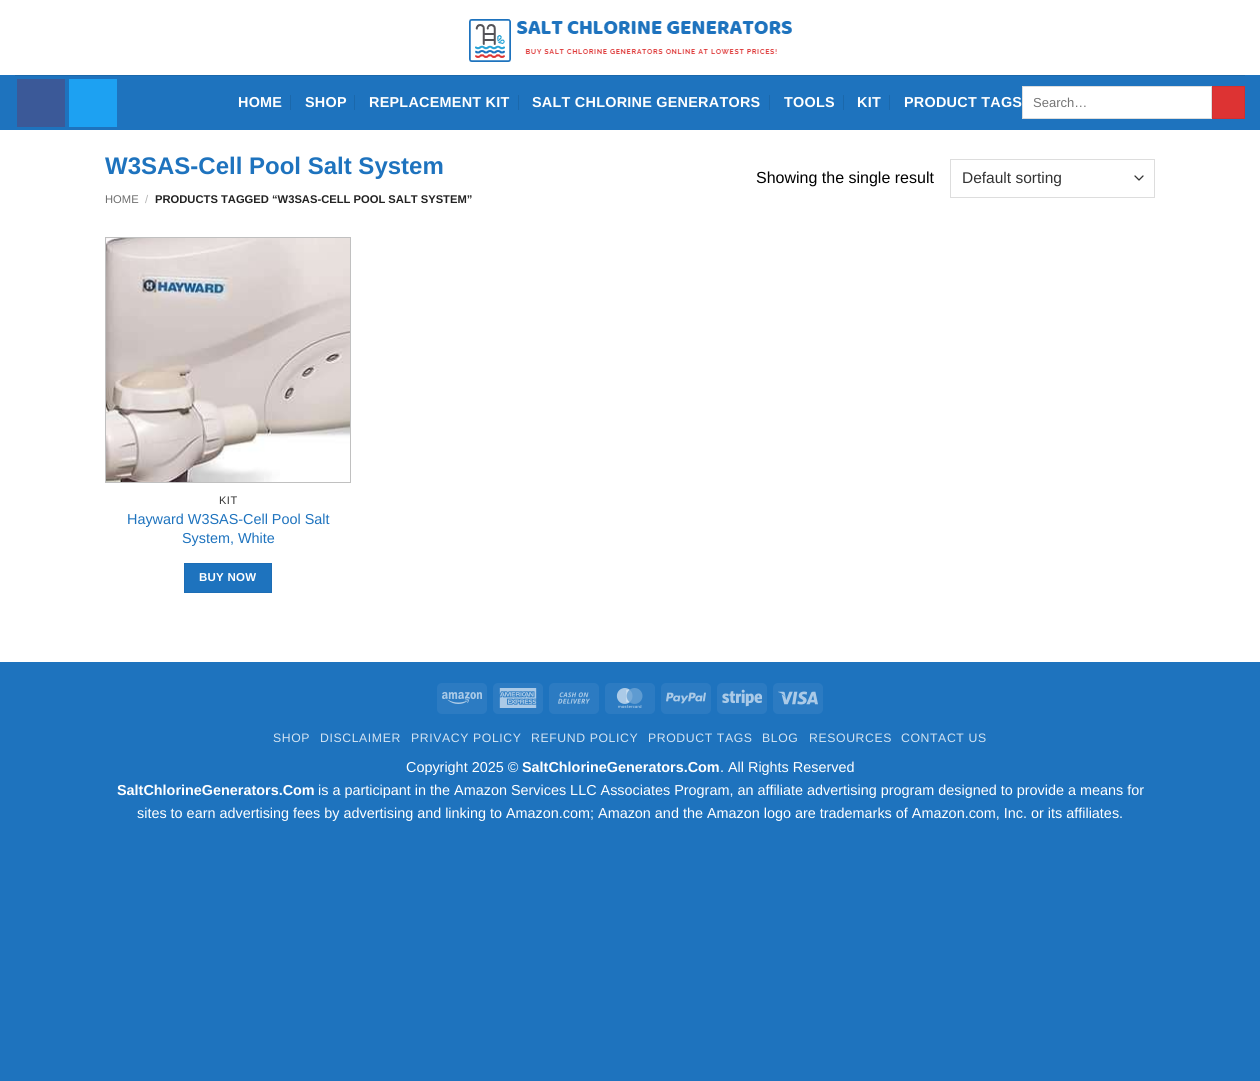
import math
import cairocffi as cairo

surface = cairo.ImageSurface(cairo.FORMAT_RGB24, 1260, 1081)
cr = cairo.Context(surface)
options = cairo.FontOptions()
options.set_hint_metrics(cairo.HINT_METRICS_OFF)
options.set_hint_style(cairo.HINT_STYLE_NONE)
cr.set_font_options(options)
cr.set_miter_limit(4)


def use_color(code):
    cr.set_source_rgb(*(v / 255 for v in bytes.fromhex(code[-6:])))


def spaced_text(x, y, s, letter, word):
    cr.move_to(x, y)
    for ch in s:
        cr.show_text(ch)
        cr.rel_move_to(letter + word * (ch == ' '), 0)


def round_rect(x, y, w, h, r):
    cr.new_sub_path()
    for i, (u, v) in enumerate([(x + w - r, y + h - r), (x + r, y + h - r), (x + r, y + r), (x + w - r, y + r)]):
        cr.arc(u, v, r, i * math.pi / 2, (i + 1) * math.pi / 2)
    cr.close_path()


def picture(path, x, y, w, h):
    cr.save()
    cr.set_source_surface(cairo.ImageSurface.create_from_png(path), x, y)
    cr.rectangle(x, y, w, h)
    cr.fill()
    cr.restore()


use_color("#1e73be")
cr.paint()
use_color("#ffffff")
cr.rectangle(0, 0, 1260, 662)
cr.fill()
picture("img1.png", 469, 19, 323, 43)
use_color("#1e73be")
cr.rectangle(0, 75, 1260, 55)
cr.fill()
use_color("#1b68ab")
cr.rectangle(15, 75, 1230, 1)
cr.fill()
use_color("#3b5998")
cr.rectangle(17, 79, 48, 48)
cr.fill()
use_color("#1da1f2")
cr.rectangle(69, 79, 48, 48)
cr.fill()
cr.select_font_face("Liberation Sans", cairo.FONT_SLANT_NORMAL, cairo.FONT_WEIGHT_BOLD)
cr.set_font_size(14.4)
use_color("#ffffff")
spaced_text(238, 107, "HOME", 0.25, 0)
use_color("#1b68ab")
cr.rectangle(290, 95, 1, 15)
cr.fill()
use_color("#ffffff")
spaced_text(305, 107, "SHOP", 0.25, 0)
use_color("#1b68ab")
cr.rectangle(354, 95, 1, 15)
cr.fill()
use_color("#ffffff")
spaced_text(369, 107, "REPLACEMENT KIT", 0.25, 0)
use_color("#1b68ab")
cr.rectangle(518, 95, 1, 15)
cr.fill()
use_color("#ffffff")
spaced_text(532, 107, "SALT CHLORINE GENERATORS", 0.25, 0)
use_color("#1b68ab")
cr.rectangle(769, 95, 1, 15)
cr.fill()
use_color("#ffffff")
spaced_text(784, 107, "TOOLS", 0.25, 0)
use_color("#1b68ab")
cr.rectangle(843, 95, 1, 15)
cr.fill()
use_color("#ffffff")
spaced_text(857, 107, "KIT", 0.25, 0)
use_color("#1b68ab")
cr.rectangle(889, 95, 1, 15)
cr.fill()
use_color("#ffffff")
spaced_text(904, 107, "PRODUCT TAGS", 0.25, 0)
cr.rectangle(1022.5, 86.5, 189, 32)
cr.fill_preserve()
use_color("#dddddd")
cr.set_line_width(1)
cr.stroke()
cr.select_font_face("Liberation Sans")
cr.set_font_size(13)
use_color("#757575")
cr.move_to(1033, 107)
cr.show_text("Search…")
use_color("#dd3333")
cr.rectangle(1212.5, 86.5, 32, 32)
cr.fill_preserve()
use_color("#d23030")
cr.stroke()
cr.select_font_face("Liberation Sans", cairo.FONT_SLANT_NORMAL, cairo.FONT_WEIGHT_BOLD)
cr.set_font_size(24)
use_color("#1e73be")
cr.move_to(105, 174)
cr.show_text("W3SAS-Cell Pool Salt System")
cr.select_font_face("Liberation Sans")
cr.set_font_size(11.2)
use_color("#6e6e6e")
cr.move_to(105, 203)
cr.show_text("HOME")
use_color("#b2b2b2")
cr.move_to(145, 203)
cr.show_text("/")
cr.select_font_face("Liberation Sans", cairo.FONT_SLANT_NORMAL, cairo.FONT_WEIGHT_BOLD)
use_color("#222222")
cr.move_to(155, 203)
cr.show_text("PRODUCTS TAGGED “W3SAS-CELL POOL SALT SYSTEM”")
cr.select_font_face("Liberation Sans")
cr.set_font_size(16)
use_color("#000000")
cr.move_to(756, 183)
cr.show_text("Showing the single result")
cr.new_path()
cr.move_to(1135, 176)
cr.line_to(1139, 180)
cr.line_to(1143, 176)
use_color("#333333")
cr.set_line_width(1.3)
cr.set_line_cap(cairo.LINE_CAP_ROUND)
cr.set_line_join(cairo.LINE_JOIN_ROUND)
cr.stroke()
cr.rectangle(950.5, 159.5, 204, 38)
use_color("#dddddd")
cr.set_line_width(1)
cr.set_line_cap(cairo.LINE_CAP_BUTT)
cr.set_line_join(cairo.LINE_JOIN_MITER)
cr.stroke()
cr.set_font_size(15.5)
use_color("#333333")
cr.move_to(962, 183)
cr.show_text("Default sorting")
cr.rectangle(105.5, 237.5, 245, 245)
use_color("#c0c0c0")
cr.stroke()
picture("img2.png", 106, 238, 244, 244)
cr.set_font_size(11)
use_color("#333333")
spaced_text(219, 504, "KIT", 0.5, 0)
cr.set_font_size(14.4)
use_color("#1e73be")
cr.move_to(127, 524)
cr.show_text("Hayward W3SAS-Cell Pool Salt")
cr.move_to(182, 543)
cr.show_text("System, White")
cr.rectangle(184.5, 563.5, 87, 29)
cr.fill_preserve()
use_color("#1d6db5")
cr.stroke()
cr.select_font_face("Liberation Sans", cairo.FONT_SLANT_NORMAL, cairo.FONT_WEIGHT_BOLD)
cr.set_font_size(11.5)
use_color("#ffffff")
spaced_text(199, 581, "BUY NOW", 0.25, 0)
use_color("#2c7bc2")
round_rect(437, 683, 50, 31, 5)
cr.fill()
picture("img3.png", 442, 692, 40, 12)
round_rect(493, 683, 50, 31, 5)
cr.fill()
picture("img4.png", 499, 688, 38, 20)
round_rect(549, 683, 50, 31, 5)
cr.fill()
picture("img5.png", 558, 692, 32, 12)
round_rect(605, 683, 50, 31, 5)
cr.fill()
picture("img6.png", 616, 688, 27, 20)
round_rect(661, 683, 50, 31, 5)
cr.fill()
picture("img7.png", 666, 692, 40, 12)
round_rect(717, 683, 50, 31, 5)
cr.fill()
picture("img8.png", 722, 689, 40, 18)
round_rect(773, 683, 50, 31, 5)
cr.fill()
picture("img9.png", 778, 691, 40, 14)
cr.select_font_face("Liberation Sans")
cr.set_font_size(12.25)
use_color("#d2e3f2")
spaced_text(273, 742, "SHOP", 0.6, 0)
spaced_text(320, 742, "DISCLAIMER", 0.6, 0)
spaced_text(411, 742, "PRIVACY POLICY", 0.6, 0)
spaced_text(531, 742, "REFUND POLICY", 0.6, 0)
spaced_text(648, 742, "PRODUCT TAGS", 0.6, 0)
spaced_text(762, 742, "BLOG", 0.6, 0)
spaced_text(809, 742, "RESOURCES", 0.6, 0)
spaced_text(901, 742, "CONTACT US", 0.6, 0)
cr.set_font_size(14.4)
use_color("#ffffff")
cr.move_to(406, 772)
cr.show_text("Copyright 2025 ©")
cr.select_font_face("Liberation Sans", cairo.FONT_SLANT_NORMAL, cairo.FONT_WEIGHT_BOLD)
cr.move_to(522, 772)
cr.show_text("SaltChlorineGenerators.Com")
cr.select_font_face("Liberation Sans")
cr.move_to(720, 772)
cr.show_text(". All Rights Reserved")
cr.select_font_face("Liberation Sans", cairo.FONT_SLANT_NORMAL, cairo.FONT_WEIGHT_BOLD)
cr.move_to(117, 795)
cr.show_text("SaltChlorineGenerators.Com")
cr.select_font_face("Liberation Sans")
cr.move_to(318, 795)
cr.show_text("is a participant in the Amazon Services LLC Associates Program, an affiliate advertising program designed to provide a means for")
cr.move_to(137, 818)
cr.show_text("sites to earn advertising fees by advertising and linking to Amazon.com; Amazon and the Amazon logo are trademarks of Amazon.com, Inc. or its affiliates.")
surface.write_to_png("result.png")
